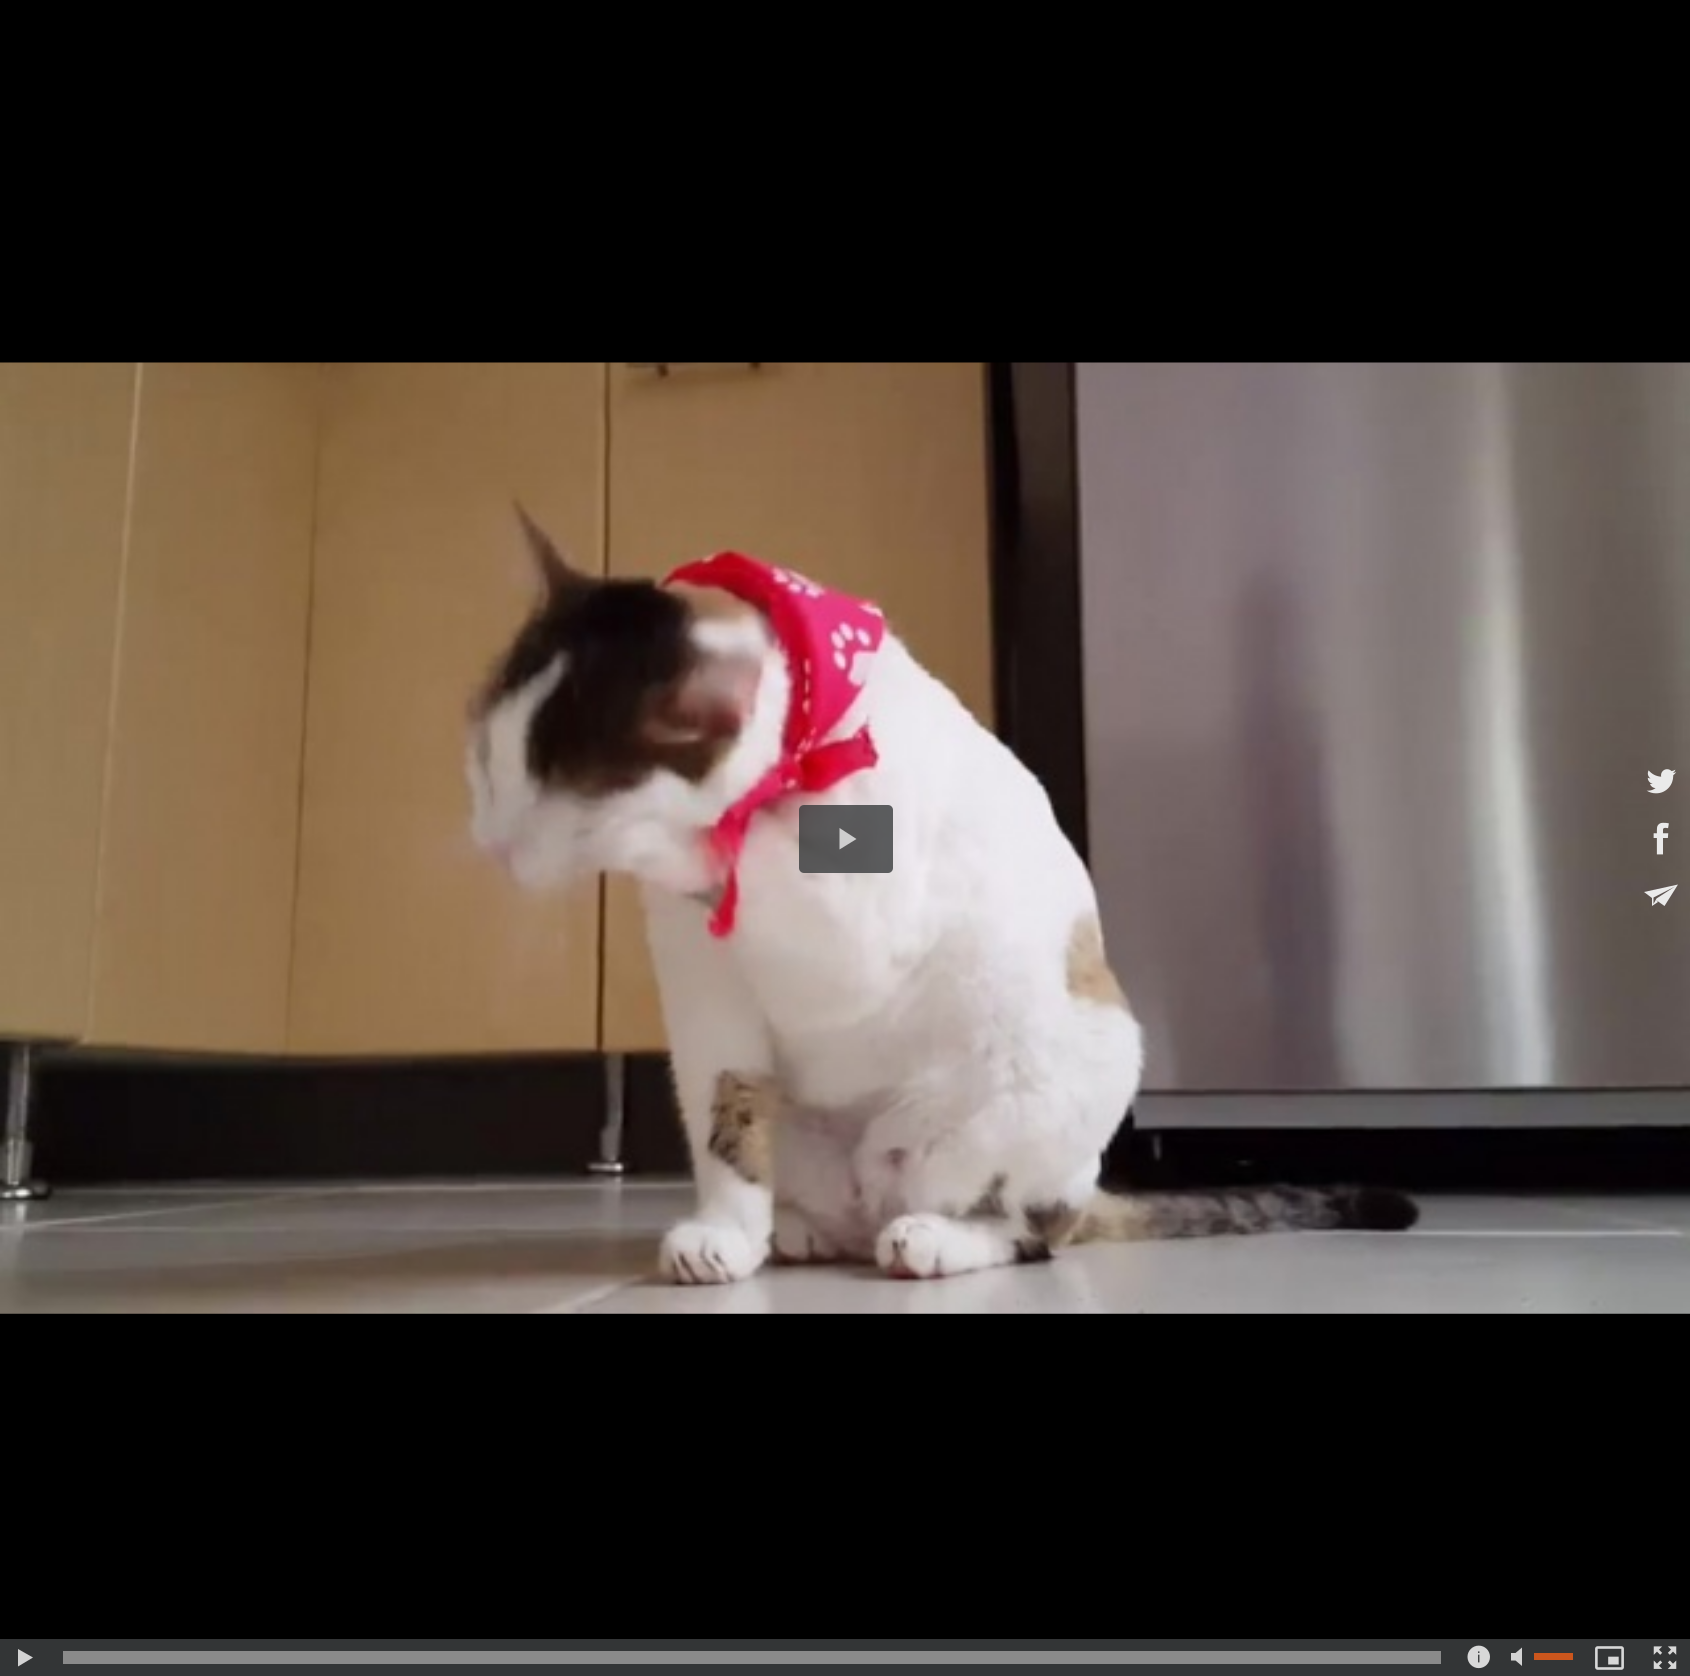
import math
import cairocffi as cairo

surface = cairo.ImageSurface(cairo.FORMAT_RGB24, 1690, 1676)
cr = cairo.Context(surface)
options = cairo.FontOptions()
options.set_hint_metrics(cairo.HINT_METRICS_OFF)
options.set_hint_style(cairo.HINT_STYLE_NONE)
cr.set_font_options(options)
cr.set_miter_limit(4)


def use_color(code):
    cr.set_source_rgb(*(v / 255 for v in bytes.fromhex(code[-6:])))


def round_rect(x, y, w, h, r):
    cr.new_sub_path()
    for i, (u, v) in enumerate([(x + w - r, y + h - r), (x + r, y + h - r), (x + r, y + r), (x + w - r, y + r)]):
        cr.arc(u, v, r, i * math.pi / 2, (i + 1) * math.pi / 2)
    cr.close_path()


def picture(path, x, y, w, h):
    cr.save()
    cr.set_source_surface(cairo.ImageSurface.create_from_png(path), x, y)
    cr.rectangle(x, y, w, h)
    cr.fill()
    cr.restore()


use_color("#000000")
cr.paint()
picture("img1.png", 0, 362, 1690, 952)
cr.set_source_rgba(0.224, 0.231, 0.235, 0.8)
round_rect(799, 805, 94, 68, 5)
cr.fill()
cr.set_source_rgba(0.918, 0.918, 0.918, 0.8)
cr.new_path()
cr.move_to(839.5, 828)
cr.line_to(839.5, 849.5)
cr.line_to(856.5, 839)
cr.close_path()
cr.fill()
picture("img2.png", 1646, 769, 31, 25)
picture("img3.png", 1653, 822, 16, 33)
use_color("#eaeaea")
cr.new_path()
cr.move_to(1644, 892)
cr.line_to(1652, 898)
cr.line_to(1652, 906)
cr.line_to(1658, 902)
cr.line_to(1656, 900)
cr.line_to(1664.5, 906)
cr.line_to(1678, 884.5)
cr.close_path()
cr.move_to(1675, 886.5)
cr.line_to(1656.5, 898.5)
cr.line_to(1653.5, 904)
cr.line_to(1653.5, 897.5)
cr.close_path()
cr.fill()
use_color("#333536")
cr.rectangle(0, 1639, 1690, 37)
cr.fill()
use_color("#d3d3d3")
cr.new_path()
cr.move_to(18, 1657.5)
cr.line_to(18, 1649)
cr.line_to(33, 1657.5)
cr.line_to(18, 1666.5)
cr.close_path()
cr.fill()
use_color("#8a8a8a")
cr.rectangle(63, 1651, 1378, 13)
cr.fill()
picture("img4.png", 1467, 1645, 23, 24)
use_color("#d3d3d3")
cr.new_path()
cr.move_to(1522, 1647.5)
cr.line_to(1515.5, 1653)
cr.line_to(1511, 1653)
cr.line_to(1511, 1660.5)
cr.line_to(1515.5, 1660.5)
cr.line_to(1522, 1666)
cr.close_path()
cr.fill()
use_color("#cb561d")
cr.rectangle(1534, 1653, 39, 7)
cr.fill()
picture("img5.png", 1595, 1646, 29, 24)
picture("img6.png", 1653, 1646, 24, 23)
surface.write_to_png("result.png")
